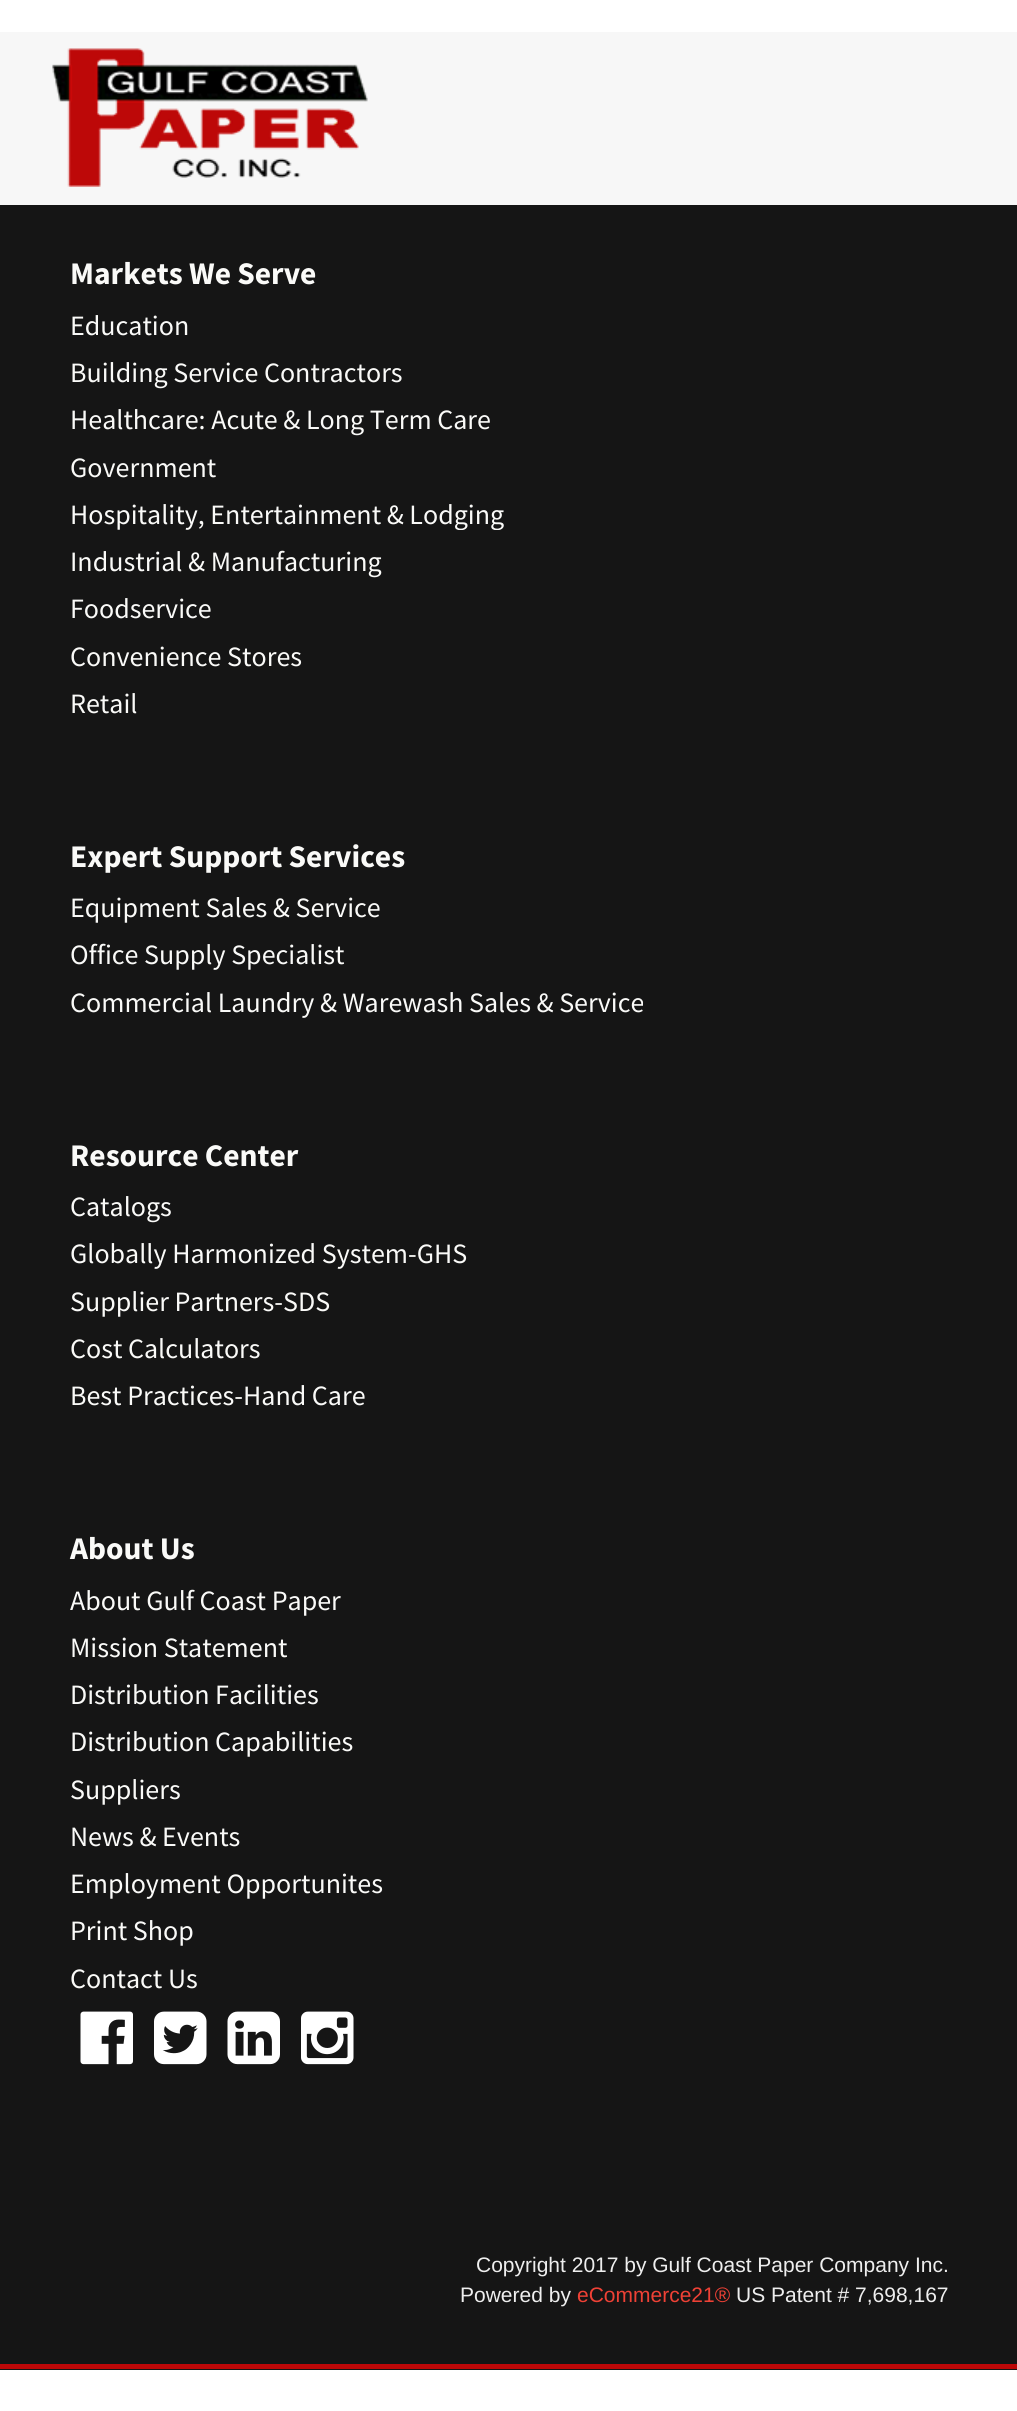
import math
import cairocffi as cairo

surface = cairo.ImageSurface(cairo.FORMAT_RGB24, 1017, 2411)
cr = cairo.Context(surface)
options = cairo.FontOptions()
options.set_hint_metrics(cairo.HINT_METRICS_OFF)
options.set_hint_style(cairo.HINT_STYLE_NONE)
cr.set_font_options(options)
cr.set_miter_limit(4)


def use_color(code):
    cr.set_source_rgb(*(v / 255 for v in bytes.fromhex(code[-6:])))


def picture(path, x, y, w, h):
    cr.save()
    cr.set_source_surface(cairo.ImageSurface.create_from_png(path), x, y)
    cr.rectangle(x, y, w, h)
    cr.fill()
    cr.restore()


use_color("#ffffff")
cr.paint()
use_color("#f7f7f7")
cr.rectangle(0, 32, 1017, 173)
cr.fill()
picture("img1.png", 52, 48, 316, 139)
use_color("#151515")
cr.rectangle(0, 205, 1017, 2165)
cr.fill()
use_color("#bd0808")
cr.rectangle(0, 2364, 1017, 5)
cr.fill()
cr.select_font_face("Source Sans Pro", cairo.FONT_SLANT_NORMAL, cairo.FONT_WEIGHT_BOLD)
cr.set_font_size(31.5)
use_color("#fafaf8")
cr.move_to(70, 284)
cr.show_text("Markets We Serve")
cr.select_font_face("Source Sans Pro")
cr.set_font_size(28)
cr.move_to(70, 335)
cr.show_text("Education")
cr.move_to(70, 382)
cr.show_text("Building Service Contractors")
cr.move_to(70, 429)
cr.show_text("Healthcare: Acute & Long Term Care")
cr.move_to(70, 477)
cr.show_text("Government")
cr.save()
cr.rectangle(70, 497, 879, 33)
cr.clip()
cr.move_to(70, 524)
cr.show_text("Hospitality, Entertainment & Lodging")
cr.restore()
cr.move_to(70, 571)
cr.show_text("Industrial & Manufacturing")
cr.move_to(70, 618)
cr.show_text("Foodservice")
cr.move_to(70, 666)
cr.show_text("Convenience Stores")
cr.move_to(70, 713)
cr.show_text("Retail")
cr.select_font_face("Source Sans Pro", cairo.FONT_SLANT_NORMAL, cairo.FONT_WEIGHT_BOLD)
cr.set_font_size(31.5)
cr.move_to(70, 867)
cr.show_text("Expert Support Services")
cr.select_font_face("Source Sans Pro")
cr.set_font_size(28)
cr.move_to(70, 917)
cr.show_text("Equipment Sales & Service")
cr.move_to(70, 964)
cr.show_text("Office Supply Specialist")
cr.move_to(70, 1012)
cr.show_text("Commercial Laundry & Warewash Sales & Service")
cr.select_font_face("Source Sans Pro", cairo.FONT_SLANT_NORMAL, cairo.FONT_WEIGHT_BOLD)
cr.set_font_size(31.5)
cr.move_to(70, 1166)
cr.show_text("Resource Center")
cr.select_font_face("Source Sans Pro")
cr.set_font_size(28)
cr.move_to(70, 1216)
cr.show_text("Catalogs")
cr.move_to(70, 1263)
cr.show_text("Globally Harmonized System-GHS")
cr.move_to(70, 1311)
cr.show_text("Supplier Partners-SDS")
cr.move_to(70, 1358)
cr.show_text("Cost Calculators")
cr.move_to(70, 1405)
cr.show_text("Best Practices-Hand Care")
cr.select_font_face("Source Sans Pro", cairo.FONT_SLANT_NORMAL, cairo.FONT_WEIGHT_BOLD)
cr.set_font_size(31.5)
cr.move_to(70, 1559)
cr.show_text("About Us")
cr.select_font_face("Source Sans Pro")
cr.set_font_size(28)
cr.move_to(70, 1610)
cr.show_text("About Gulf Coast Paper")
cr.move_to(70, 1657)
cr.show_text("Mission Statement")
cr.move_to(70, 1704)
cr.show_text("Distribution Facilities")
cr.move_to(70, 1751)
cr.show_text("Distribution Capabilities")
cr.move_to(70, 1799)
cr.show_text("Suppliers")
cr.move_to(70, 1846)
cr.show_text("News & Events")
cr.move_to(70, 1893)
cr.show_text("Employment Opportunites")
cr.move_to(70, 1940)
cr.show_text("Print Shop")
cr.move_to(70, 1988)
cr.show_text("Contact Us")
picture("img2.png", 80, 2011, 53, 54)
picture("img3.png", 154, 2011, 53, 54)
picture("img4.png", 227, 2011, 53, 54)
picture("img5.png", 301, 2011, 53, 54)
cr.select_font_face("Liberation Sans")
cr.set_font_size(21)
use_color("#eeeeee")
cr.move_to(476, 2272)
cr.show_text("Copyright 2017 by Gulf Coast Paper Company Inc.")
cr.move_to(460, 2302)
cr.show_text("Powered by")
use_color("#ef4135")
cr.move_to(577, 2302)
cr.show_text("eCommerce21®")
use_color("#eeeeee")
cr.move_to(736, 2302)
cr.show_text("US Patent # 7,698,167")
surface.write_to_png("result.png")
